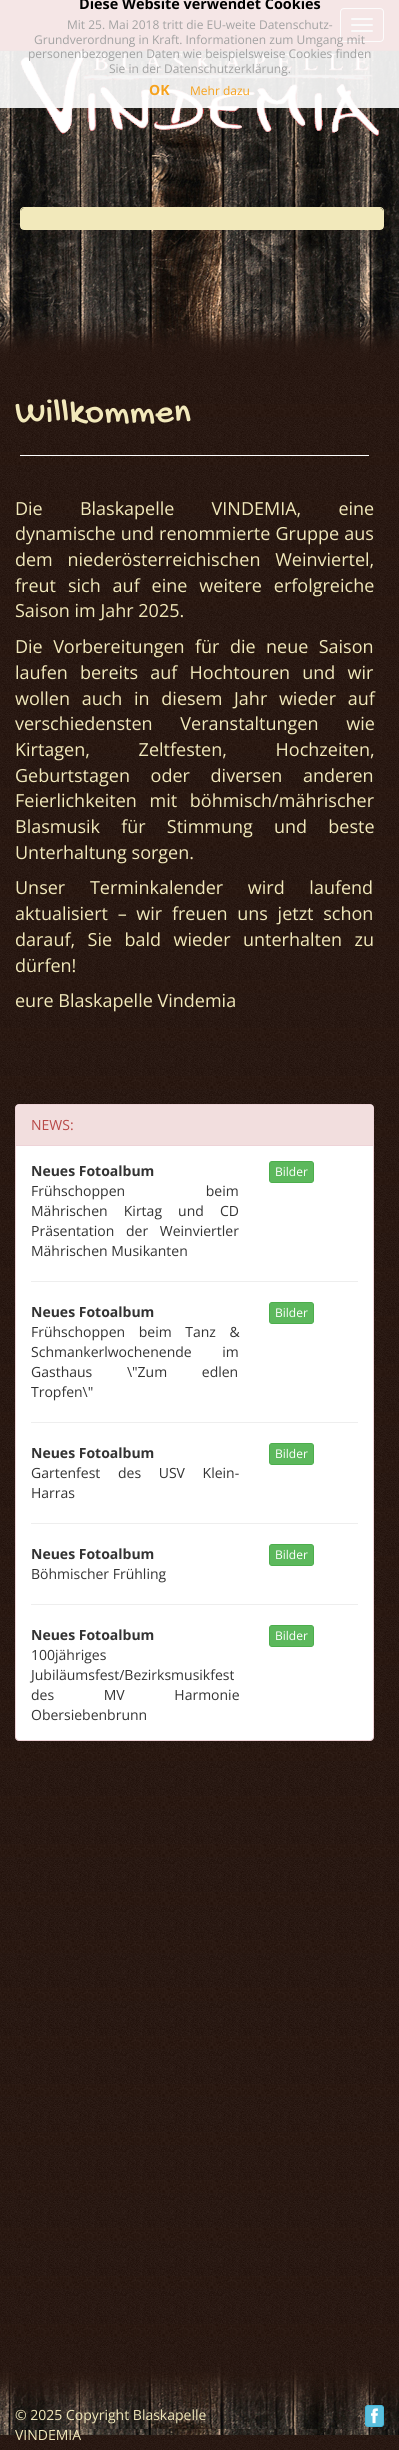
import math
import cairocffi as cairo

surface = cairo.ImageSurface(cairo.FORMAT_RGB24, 399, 2450)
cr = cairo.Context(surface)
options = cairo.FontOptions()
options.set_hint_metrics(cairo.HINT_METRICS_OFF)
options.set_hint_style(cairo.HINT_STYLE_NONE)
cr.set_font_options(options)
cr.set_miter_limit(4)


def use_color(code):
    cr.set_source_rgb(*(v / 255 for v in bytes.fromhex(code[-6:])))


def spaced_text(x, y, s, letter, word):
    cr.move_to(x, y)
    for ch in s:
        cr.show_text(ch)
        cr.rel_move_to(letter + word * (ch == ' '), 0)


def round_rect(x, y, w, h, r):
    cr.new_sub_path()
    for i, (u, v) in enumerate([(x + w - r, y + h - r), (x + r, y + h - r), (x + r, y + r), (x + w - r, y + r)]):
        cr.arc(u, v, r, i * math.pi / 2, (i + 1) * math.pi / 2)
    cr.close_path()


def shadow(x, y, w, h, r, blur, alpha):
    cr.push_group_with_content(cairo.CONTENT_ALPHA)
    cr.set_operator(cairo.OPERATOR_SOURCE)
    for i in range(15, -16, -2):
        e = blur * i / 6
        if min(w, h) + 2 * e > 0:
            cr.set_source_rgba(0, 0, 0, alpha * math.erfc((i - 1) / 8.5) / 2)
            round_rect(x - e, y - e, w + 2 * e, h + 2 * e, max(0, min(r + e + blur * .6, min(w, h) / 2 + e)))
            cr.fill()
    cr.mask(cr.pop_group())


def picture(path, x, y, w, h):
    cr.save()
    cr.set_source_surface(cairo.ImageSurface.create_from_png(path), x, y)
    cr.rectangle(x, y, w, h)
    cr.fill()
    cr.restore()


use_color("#ffffff")
cr.paint()
picture("img1.png", 0, 2435, 399, 15)
picture("img2.png", 0, 375, 399, 2060)
picture("img3.png", 0, 51, 399, 324)
use_color("#990000")
cr.rectangle(0, 0, 399, 50)
cr.fill()
use_color("#780000")
cr.rectangle(0, 50, 399, 1)
cr.fill()
round_rect(340.5, 8.5, 43, 33, 3.5)
use_color("#dddddd")
cr.set_line_width(1)
cr.stroke()
use_color("#cccccc")
round_rect(351, 18, 22, 2, 1)
cr.fill()
round_rect(351, 24, 22, 2, 1)
cr.fill()
round_rect(351, 30, 22, 2, 1)
cr.fill()
picture("img4.png", 20, 51, 359, 85)
cr.set_source_rgba(1, 1, 1, 0.9)
cr.rectangle(0, 0, 399, 108)
cr.fill()
cr.select_font_face("Open Sans", cairo.FONT_SLANT_NORMAL, cairo.FONT_WEIGHT_BOLD)
cr.set_font_size(14.4)
use_color("#000000")
cr.move_to(79, 9)
cr.show_text("Diese Website verwendet Cookies")
cr.select_font_face("Open Sans")
cr.set_font_size(12)
use_color("#a2a2a2")
cr.move_to(67, 29)
cr.show_text("Mit 25. Mai 2018 tritt die EU-weite Datenschutz-")
cr.move_to(34, 44)
cr.show_text("Grundverordnung in Kraft. Informationen zum Umgang mit")
cr.move_to(28, 58)
cr.show_text("personenbezogenen Daten wie beispielsweise Cookies finden")
cr.move_to(109, 73)
cr.show_text("Sie in der Datenschutzerklärung.")
cr.select_font_face("Open Sans", cairo.FONT_SLANT_NORMAL, cairo.FONT_WEIGHT_BOLD)
cr.set_font_size(14)
use_color("#f6a21d")
cr.move_to(149, 95)
cr.show_text("OK")
cr.select_font_face("Open Sans")
cr.set_font_size(12)
cr.move_to(190, 95)
cr.show_text("Mehr dazu")
use_color("#000000")
shadow(20, 208, 364, 23, 4, 0.5, 0.05)
round_rect(20.5, 207.5, 363, 22, 3.5)
use_color("#f2e9bb")
cr.stroke()
cr.new_path()
cr.move_to(24, 208)
cr.line_to(380, 208)
cr.curve_to(381.5, 208, 383, 209.5, 383, 211)
cr.line_to(383, 229)
cr.line_to(21, 229)
cr.line_to(21, 211)
cr.curve_to(21, 209.5, 22.5, 208, 24, 208)
cr.close_path()
cr.fill()
cr.select_font_face("Gochi Hand")
cr.set_font_size(36)
cr.move_to(15, 421)
cr.show_text("Willkommen")
use_color("#ffffff")
cr.rectangle(20, 455, 349, 1)
cr.fill()
cr.select_font_face("Open Sans")
cr.set_font_size(18)
use_color("#f2e9bb")
spaced_text(15, 515, "Die Blaskapelle VINDEMIA, eine", 0, 32.5)
spaced_text(15, 540, "dynamische und renommierte Gruppe aus", 0, 0.5)
spaced_text(15, 566, "dem niederösterreichischen Weinviertel,", 0, 10)
spaced_text(15, 592, "freut sich auf eine weitere erfolgreiche", 0, 7.25)
cr.move_to(15, 617)
cr.show_text("Saison im Jahr 2025.")
spaced_text(15, 653, "Die Vorbereitungen für die neue Saison", 0, 5.75)
spaced_text(15, 679, "laufen bereits auf Hochtouren und wir", 0, 7.5)
spaced_text(15, 705, "wollen auch in diesem Jahr wieder auf", 0, 7)
spaced_text(15, 730, "verschiedensten Veranstaltungen wie", 0, 23)
spaced_text(15, 756, "Kirtagen, Zeltfesten, Hochzeiten,", 0, 44)
spaced_text(15, 782, "Geburtstagen oder diversen anderen", 0, 16)
spaced_text(15, 807, "Feierlichkeiten mit böhmisch/mährischer", 0, 8)
spaced_text(15, 833, "Blasmusik für Stimmung und beste", 0, 16.5)
cr.move_to(15, 859)
cr.show_text("Unterhaltung sorgen.")
spaced_text(15, 894, "Unser Terminkalender wird laufend", 0, 20)
spaced_text(15, 920, "aktualisiert – wir freuen uns jetzt schon", 0, 5)
spaced_text(15, 946, "darauf, Sie bald wieder unterhalten zu", 0, 7.75)
cr.move_to(15, 972)
cr.show_text("dürfen!")
cr.move_to(15, 1007)
cr.show_text("eure Blaskapelle Vindemia")
use_color("#ffffff")
round_rect(15.5, 1104.5, 358, 636, 3.5)
cr.fill_preserve()
use_color("#eed3d7")
cr.stroke()
use_color("#f2dede")
cr.new_path()
cr.move_to(19, 1105)
cr.line_to(370, 1105)
cr.curve_to(371.5, 1105, 373, 1106.5, 373, 1108)
cr.line_to(373, 1146)
cr.line_to(16, 1146)
cr.line_to(16, 1108)
cr.curve_to(16, 1106.5, 17.5, 1105, 19, 1105)
cr.close_path()
cr.fill()
use_color("#eed3d7")
cr.rectangle(16, 1145, 357, 1)
cr.fill()
cr.set_font_size(14)
use_color("#b94a48")
cr.move_to(31, 1130)
cr.show_text("NEWS:")
cr.select_font_face("Open Sans", cairo.FONT_SLANT_NORMAL, cairo.FONT_WEIGHT_BOLD)
use_color("#333333")
cr.move_to(31, 1176)
cr.show_text("Neues Fotoalbum")
cr.select_font_face("Open Sans")
spaced_text(31, 1196, "Frühschoppen beim", 0, 77)
spaced_text(31, 1216, "Mährischen Kirtag und CD", 0, 12.5)
spaced_text(31, 1236, "Präsentation der Weinviertler", 0, 8)
cr.move_to(31, 1256)
cr.show_text("Mährischen Musikanten")
use_color("#5cb85c")
round_rect(269.5, 1161.5, 44, 21, 2.5)
cr.fill_preserve()
use_color("#4cae4c")
cr.stroke()
cr.set_font_size(12)
use_color("#ffffff")
cr.move_to(275, 1176)
cr.show_text("Bilder")
use_color("#eeeeee")
cr.rectangle(31, 1281, 327, 1)
cr.fill()
cr.select_font_face("Open Sans", cairo.FONT_SLANT_NORMAL, cairo.FONT_WEIGHT_BOLD)
cr.set_font_size(14)
use_color("#333333")
cr.move_to(31, 1317)
cr.show_text("Neues Fotoalbum")
cr.select_font_face("Open Sans")
spaced_text(31, 1337, "Frühschoppen beim Tanz &", 0, 10)
spaced_text(31, 1357, "Schmankerlwochenende im", 0, 27)
spaced_text(31, 1377, "Gasthaus \\\"Zum edlen", 0, 31)
cr.move_to(31, 1397)
cr.show_text("Tropfen\\\"")
use_color("#5cb85c")
round_rect(269.5, 1302.5, 44, 21, 2.5)
cr.fill_preserve()
use_color("#4cae4c")
cr.stroke()
cr.set_font_size(12)
use_color("#ffffff")
cr.move_to(275, 1317)
cr.show_text("Bilder")
use_color("#eeeeee")
cr.rectangle(31, 1422, 327, 1)
cr.fill()
cr.select_font_face("Open Sans", cairo.FONT_SLANT_NORMAL, cairo.FONT_WEIGHT_BOLD)
cr.set_font_size(14)
use_color("#333333")
cr.move_to(31, 1458)
cr.show_text("Neues Fotoalbum")
cr.select_font_face("Open Sans")
spaced_text(31, 1478, "Gartenfest des USV Klein-", 0, 14)
cr.move_to(31, 1498)
cr.show_text("Harras")
use_color("#5cb85c")
round_rect(269.5, 1443.5, 44, 21, 2.5)
cr.fill_preserve()
use_color("#4cae4c")
cr.stroke()
cr.set_font_size(12)
use_color("#ffffff")
cr.move_to(275, 1458)
cr.show_text("Bilder")
use_color("#eeeeee")
cr.rectangle(31, 1523, 327, 1)
cr.fill()
cr.select_font_face("Open Sans", cairo.FONT_SLANT_NORMAL, cairo.FONT_WEIGHT_BOLD)
cr.set_font_size(14)
use_color("#333333")
cr.move_to(31, 1559)
cr.show_text("Neues Fotoalbum")
cr.select_font_face("Open Sans")
cr.move_to(31, 1579)
cr.show_text("Böhmischer Frühling")
use_color("#5cb85c")
round_rect(269.5, 1544.5, 44, 21, 2.5)
cr.fill_preserve()
use_color("#4cae4c")
cr.stroke()
cr.set_font_size(12)
use_color("#ffffff")
cr.move_to(275, 1559)
cr.show_text("Bilder")
use_color("#eeeeee")
cr.rectangle(31, 1604, 327, 1)
cr.fill()
cr.select_font_face("Open Sans", cairo.FONT_SLANT_NORMAL, cairo.FONT_WEIGHT_BOLD)
cr.set_font_size(14)
use_color("#333333")
cr.move_to(31, 1640)
cr.show_text("Neues Fotoalbum")
cr.select_font_face("Open Sans")
cr.move_to(31, 1660)
cr.show_text("100jähriges")
cr.move_to(31, 1680)
cr.show_text("Jubiläumsfest/Bezirksmusikfest")
spaced_text(31, 1700, "des MV Harmonie", 0, 46)
cr.move_to(31, 1720)
cr.show_text("Obersiebenbrunn")
use_color("#5cb85c")
round_rect(269.5, 1625.5, 44, 21, 2.5)
cr.fill_preserve()
use_color("#4cae4c")
cr.stroke()
cr.set_font_size(12)
use_color("#ffffff")
cr.move_to(275, 1640)
cr.show_text("Bilder")
picture("img5.png", 0, 2345, 399, 90)
cr.set_font_size(14)
use_color("#f2e9bb")
cr.move_to(15, 2420)
cr.show_text("© 2025 Copyright Blaskapelle")
cr.move_to(15, 2440)
cr.show_text("VINDEMIA")
use_color("#5bc0de")
round_rect(365.5, 2405.5, 18, 21, 2.5)
cr.fill_preserve()
use_color("#46b8da")
cr.stroke()
picture("img6.png", 371, 2408, 7, 16)
surface.write_to_png("result.png")
